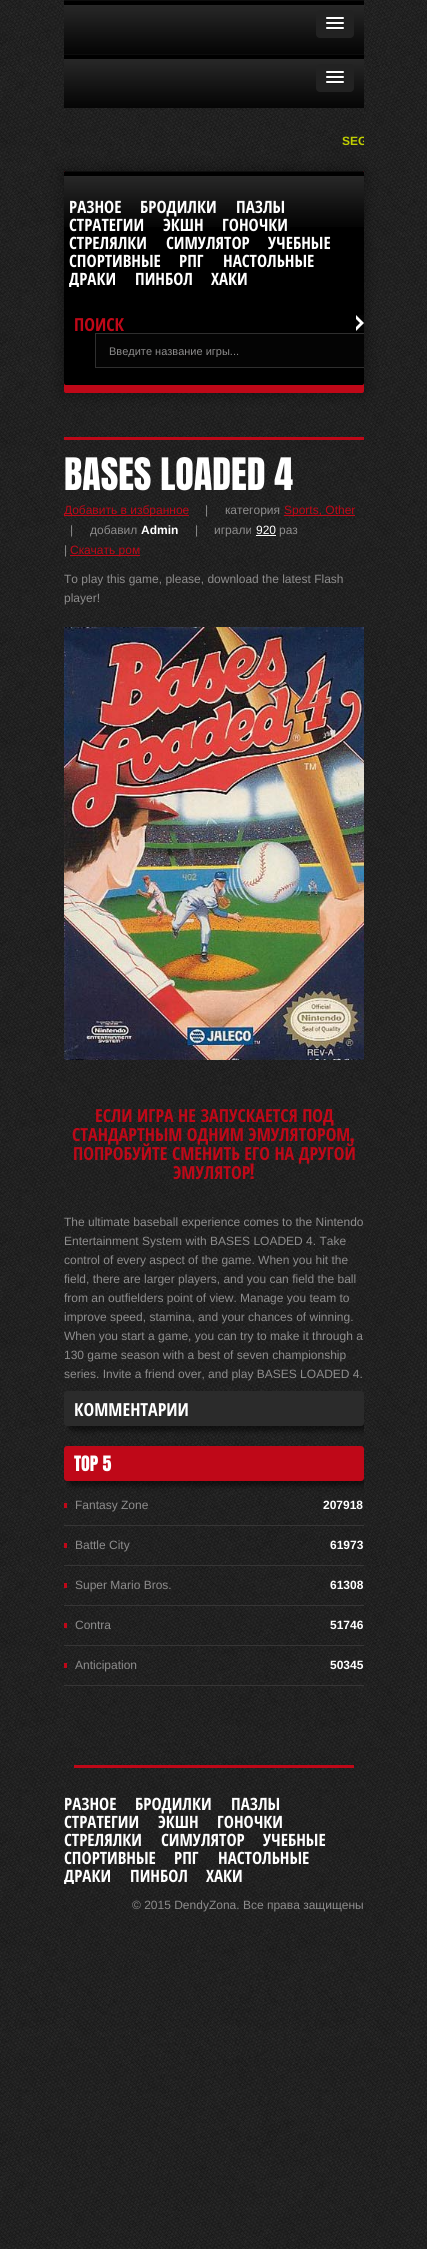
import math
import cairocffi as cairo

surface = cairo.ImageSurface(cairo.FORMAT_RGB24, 427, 2249)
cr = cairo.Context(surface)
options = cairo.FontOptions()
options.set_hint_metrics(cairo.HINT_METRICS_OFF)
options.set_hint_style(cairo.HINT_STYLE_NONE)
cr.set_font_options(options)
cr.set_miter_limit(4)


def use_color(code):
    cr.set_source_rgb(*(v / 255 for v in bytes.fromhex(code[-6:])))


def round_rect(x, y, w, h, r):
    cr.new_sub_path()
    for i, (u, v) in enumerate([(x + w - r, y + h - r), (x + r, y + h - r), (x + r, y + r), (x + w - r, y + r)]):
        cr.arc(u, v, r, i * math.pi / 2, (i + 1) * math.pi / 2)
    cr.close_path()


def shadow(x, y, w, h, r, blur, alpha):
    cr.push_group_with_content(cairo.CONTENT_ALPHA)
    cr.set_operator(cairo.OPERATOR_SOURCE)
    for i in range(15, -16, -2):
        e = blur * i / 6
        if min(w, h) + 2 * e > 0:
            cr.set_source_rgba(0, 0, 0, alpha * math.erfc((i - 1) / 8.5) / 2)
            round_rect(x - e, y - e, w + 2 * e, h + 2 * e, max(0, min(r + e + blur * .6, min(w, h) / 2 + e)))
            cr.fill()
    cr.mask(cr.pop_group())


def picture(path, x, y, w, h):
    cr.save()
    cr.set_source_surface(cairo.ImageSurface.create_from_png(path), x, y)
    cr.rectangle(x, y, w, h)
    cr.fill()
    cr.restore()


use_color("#ffffff")
cr.paint()
picture("img1.png", 0, 0, 427, 2249)
picture("img2.png", 64, 108, 300, 65)
picture("img3.png", 64, 0, 300, 54)
use_color("#222222")
round_rect(316, 10, 38, 28, 4)
cr.fill()
use_color("#1a1a1a")
cr.new_path()
cr.move_to(326, 18.5)
cr.curve_to(325, 20.5, 329.5, 20, 329.5, 20)
cr.line_to(340.5, 20)
cr.curve_to(340.5, 20, 345, 20.5, 344, 18.5)
cr.curve_to(343, 19.5, 336.5, 19, 335, 19)
cr.curve_to(333.5, 19, 327, 19.5, 326, 18.5)
cr.close_path()
cr.fill()
use_color("#ffffff")
round_rect(326, 17, 18, 2, 1)
cr.fill()
use_color("#1a1a1a")
cr.new_path()
cr.move_to(326, 23.5)
cr.curve_to(325, 25.5, 329.5, 25, 329.5, 25)
cr.line_to(340.5, 25)
cr.curve_to(340.5, 25, 345, 25.5, 344, 23.5)
cr.curve_to(343, 24.5, 336.5, 24, 335, 24)
cr.curve_to(333.5, 24, 327, 24.5, 326, 23.5)
cr.close_path()
cr.fill()
use_color("#ffffff")
round_rect(326, 22, 18, 2, 1)
cr.fill()
use_color("#1a1a1a")
cr.new_path()
cr.move_to(326, 28.5)
cr.curve_to(325, 30.5, 329.5, 30, 329.5, 30)
cr.line_to(340.5, 30)
cr.curve_to(340.5, 30, 345, 30.5, 344, 28.5)
cr.curve_to(343, 29.5, 336.5, 29, 335, 29)
cr.curve_to(333.5, 29, 327, 29.5, 326, 28.5)
cr.close_path()
cr.fill()
use_color("#ffffff")
round_rect(326, 27, 18, 2, 1)
cr.fill()
picture("img3.png", 64, 54, 300, 54)
use_color("#222222")
round_rect(316, 64, 38, 28, 4)
cr.fill()
use_color("#1a1a1a")
cr.new_path()
cr.move_to(326, 72.5)
cr.curve_to(325, 74.5, 329.5, 74, 329.5, 74)
cr.line_to(340.5, 74)
cr.curve_to(340.5, 74, 345, 74.5, 344, 72.5)
cr.curve_to(343, 73.5, 336.5, 73, 335, 73)
cr.curve_to(333.5, 73, 327, 73.5, 326, 72.5)
cr.close_path()
cr.fill()
use_color("#ffffff")
round_rect(326, 71, 18, 2, 1)
cr.fill()
use_color("#1a1a1a")
cr.new_path()
cr.move_to(326, 77.5)
cr.curve_to(325, 79.5, 329.5, 79, 329.5, 79)
cr.line_to(340.5, 79)
cr.curve_to(340.5, 79, 345, 79.5, 344, 77.5)
cr.curve_to(343, 78.5, 336.5, 78, 335, 78)
cr.curve_to(333.5, 78, 327, 78.5, 326, 77.5)
cr.close_path()
cr.fill()
use_color("#ffffff")
round_rect(326, 76, 18, 2, 1)
cr.fill()
use_color("#1a1a1a")
cr.new_path()
cr.move_to(326, 82.5)
cr.curve_to(325, 84.5, 329.5, 84, 329.5, 84)
cr.line_to(340.5, 84)
cr.curve_to(340.5, 84, 345, 84.5, 344, 82.5)
cr.curve_to(343, 83.5, 336.5, 83, 335, 83)
cr.curve_to(333.5, 83, 327, 83.5, 326, 82.5)
cr.close_path()
cr.fill()
use_color("#ffffff")
round_rect(326, 81, 18, 2, 1)
cr.fill()
cr.save()
cr.rectangle(64, 108, 300, 43)
cr.clip()
cr.select_font_face("Liberation Sans", cairo.FONT_SLANT_NORMAL, cairo.FONT_WEIGHT_BOLD)
cr.set_font_size(12)
use_color("#c0cf00")
cr.move_to(342, 145)
cr.show_text("SEG")
cr.restore()
use_color("#000000")
shadow(64, 171, 300, 222, 2, 8, 0.45)
use_color("#bf0818")
round_rect(64, 171, 300, 222, 2)
cr.fill()
use_color("#000000")
round_rect(64, 171, 300, 214, 2)
cr.fill()
picture("img4.png", 64, 171, 300, 56)
cr.select_font_face("Open Sans Condensed", cairo.FONT_SLANT_NORMAL, cairo.FONT_WEIGHT_BOLD)
cr.set_font_size(17)
use_color("#ffffff")
cr.move_to(69, 213)
cr.show_text("РАЗНОЕ")
cr.move_to(140, 213)
cr.show_text("БРОДИЛКИ")
cr.move_to(236, 213)
cr.show_text("ПАЗЛЫ")
cr.move_to(69, 231)
cr.show_text("СТРАТЕГИИ")
cr.move_to(163, 231)
cr.show_text("ЭКШН")
cr.move_to(222, 231)
cr.show_text("ГОНОЧКИ")
cr.move_to(69, 249)
cr.show_text("СТРЕЛЯЛКИ")
cr.move_to(166, 249)
cr.show_text("СИМУЛЯТОР")
cr.move_to(268, 249)
cr.show_text("УЧЕБНЫЕ")
cr.move_to(69, 267)
cr.show_text("СПОРТИВНЫЕ")
cr.move_to(179, 267)
cr.show_text("РПГ")
cr.move_to(223, 267)
cr.show_text("НАСТОЛЬНЫЕ")
cr.save()
cr.rectangle(69, 197, 295, 90)
cr.clip()
cr.move_to(69, 285)
cr.show_text("ДРАКИ")
cr.restore()
cr.move_to(135, 285)
cr.show_text("ПИНБОЛ")
cr.move_to(211, 285)
cr.show_text("ХАКИ")
cr.set_font_size(18)
use_color("#bf0818")
cr.move_to(74, 331)
cr.show_text("ПОИСК")
picture("img5.png", 356, 315, 8, 16)
use_color("#040404")
cr.rectangle(96, 334, 268, 33)
cr.fill()
use_color("#2f2f2f")
cr.new_path()
cr.move_to(95, 333)
cr.line_to(95, 368)
cr.line_to(364, 368)
cr.line_to(364, 367)
cr.line_to(96, 367)
cr.line_to(96, 334)
cr.line_to(364, 334)
cr.line_to(364, 333)
cr.close_path()
cr.fill()
cr.save()
cr.rectangle(109, 345, 251, 12)
cr.clip()
cr.select_font_face("Liberation Sans")
cr.set_font_size(11)
use_color("#8d8c8c")
cr.move_to(109, 355)
cr.show_text("Введите название игры...")
cr.restore()
use_color("#bf0818")
cr.rectangle(64, 437, 300, 3)
cr.fill()
cr.select_font_face("Anton")
cr.set_font_size(38)
use_color("#ffffff")
cr.move_to(64, 490)
cr.show_text("BASES LOADED 4")
use_color("#bf0818")
cr.rectangle(64, 515, 125, 1)
cr.fill()
cr.save()
cr.rectangle(64, 437, 300, 1278)
cr.clip()
cr.select_font_face("Liberation Sans")
cr.set_font_size(12)
cr.move_to(64, 514)
cr.show_text("Добавить в избранное")
cr.restore()
cr.select_font_face("Liberation Sans")
cr.set_font_size(12)
use_color("#8d8c8c")
cr.move_to(205, 514)
cr.show_text("|")
cr.move_to(225, 514)
cr.show_text("категория")
use_color("#bf0818")
cr.rectangle(284, 515, 71, 1)
cr.fill()
cr.move_to(284, 514)
cr.show_text("Sports, Other")
use_color("#8d8c8c")
cr.move_to(70, 534)
cr.show_text("|")
cr.move_to(90, 534)
cr.show_text("добавил")
cr.select_font_face("Liberation Sans", cairo.FONT_SLANT_NORMAL, cairo.FONT_WEIGHT_BOLD)
use_color("#ffffff")
cr.move_to(141, 534)
cr.show_text("Admin")
cr.select_font_face("Liberation Sans")
use_color("#8d8c8c")
cr.move_to(195, 534)
cr.show_text("|")
cr.move_to(214, 534)
cr.show_text("играли")
use_color("#ffffff")
cr.rectangle(256, 535, 20, 1)
cr.fill()
cr.move_to(256, 534)
cr.show_text("920")
use_color("#8d8c8c")
cr.move_to(279, 534)
cr.show_text("раз")
cr.move_to(64, 554)
cr.show_text("|")
use_color("#bf0818")
cr.rectangle(70, 555, 70, 1)
cr.fill()
cr.move_to(70, 554)
cr.show_text("Скачать ром")
use_color("#8d8c8c")
cr.move_to(64, 583)
cr.show_text("To play this game, please, download the latest Flash")
cr.move_to(64, 602)
cr.show_text("player!")
picture("img6.png", 64, 627, 300, 433)
cr.select_font_face("Open Sans Condensed", cairo.FONT_SLANT_NORMAL, cairo.FONT_WEIGHT_BOLD)
cr.set_font_size(18)
use_color("#bf0818")
cr.move_to(95, 1122)
cr.show_text("ЕСЛИ ИГРА НЕ ЗАПУСКАЕТСЯ ПОД")
cr.move_to(72, 1141)
cr.show_text("СТАНДАРТНЫМ ОДНИМ ЭМУЛЯТОРОМ")
cr.select_font_face("Anton")
cr.move_to(350, 1141)
cr.show_text(",")
cr.select_font_face("Open Sans Condensed", cairo.FONT_SLANT_NORMAL, cairo.FONT_WEIGHT_BOLD)
cr.move_to(73, 1160)
cr.show_text("ПОПРОБУЙТЕ СМЕНИТЬ ЕГО НА ДРУГОЙ")
cr.move_to(173, 1179)
cr.show_text("ЭМУЛЯТОР")
cr.select_font_face("Anton")
cr.move_to(250, 1179)
cr.show_text("!")
cr.select_font_face("Liberation Sans")
cr.set_font_size(12)
use_color("#8d8c8c")
cr.move_to(64, 1226)
cr.show_text("The ultimate baseball experience comes to the Nintendo")
cr.move_to(64, 1245)
cr.show_text("Entertainment System with BASES LOADED 4. Take")
cr.move_to(64, 1264)
cr.show_text("control of every aspect of the game. When you hit the")
cr.move_to(64, 1283)
cr.show_text("field, there are larger players, and you can field the ball")
cr.move_to(64, 1302)
cr.show_text("from an outfielders point of view. Manage you team to")
cr.move_to(64, 1321)
cr.show_text("improve speed, stamina, and your chances of winning.")
cr.move_to(64, 1340)
cr.show_text("When you start a game, you can try to make it through a")
cr.move_to(64, 1359)
cr.show_text("130 game season with a best of seven championship")
cr.move_to(64, 1378)
cr.show_text("series. Invite a friend over, and play BASES LOADED 4.")
cr.save()
cr.rectangle(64, 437, 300, 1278)
cr.clip()
use_color("#000000")
shadow(69, 1396, 300, 35, 3, 2.5, 0.5)
cr.restore()
use_color("#2b2b2b")
round_rect(64, 1391, 300, 35, 3)
cr.fill()
cr.select_font_face("Open Sans Condensed", cairo.FONT_SLANT_NORMAL, cairo.FONT_WEIGHT_BOLD)
cr.set_font_size(18)
use_color("#ffffff")
cr.move_to(74, 1416)
cr.show_text("КОММЕНТАРИИ")
cr.save()
cr.rectangle(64, 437, 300, 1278)
cr.clip()
use_color("#000000")
shadow(69, 1451, 300, 35, 3, 2.5, 0.5)
cr.restore()
use_color("#bf0818")
round_rect(64, 1446, 300, 35, 3)
cr.fill()
cr.select_font_face("Anton")
use_color("#ffffff")
cr.move_to(74, 1471)
cr.show_text("TOP 5")
use_color("#363535")
cr.rectangle(64, 1525, 300, 1)
cr.fill()
cr.select_font_face("Liberation Sans")
cr.set_font_size(12)
use_color("#8d8c8c")
cr.move_to(75, 1509)
cr.show_text("Fantasy Zone")
use_color("#bf0818")
cr.rectangle(64, 1503, 3, 5)
cr.fill()
cr.select_font_face("Liberation Sans", cairo.FONT_SLANT_NORMAL, cairo.FONT_WEIGHT_BOLD)
use_color("#ffffff")
cr.move_to(323, 1509)
cr.show_text("207918")
use_color("#363535")
cr.rectangle(64, 1565, 300, 1)
cr.fill()
cr.select_font_face("Liberation Sans")
use_color("#8d8c8c")
cr.move_to(75, 1549)
cr.show_text("Battle City")
use_color("#bf0818")
cr.rectangle(64, 1543, 3, 5)
cr.fill()
cr.select_font_face("Liberation Sans", cairo.FONT_SLANT_NORMAL, cairo.FONT_WEIGHT_BOLD)
use_color("#ffffff")
cr.move_to(330, 1549)
cr.show_text("61973")
use_color("#363535")
cr.rectangle(64, 1605, 300, 1)
cr.fill()
cr.select_font_face("Liberation Sans")
use_color("#8d8c8c")
cr.move_to(75, 1589)
cr.show_text("Super Mario Bros.")
use_color("#bf0818")
cr.rectangle(64, 1583, 3, 5)
cr.fill()
cr.select_font_face("Liberation Sans", cairo.FONT_SLANT_NORMAL, cairo.FONT_WEIGHT_BOLD)
use_color("#ffffff")
cr.move_to(330, 1589)
cr.show_text("61308")
use_color("#363535")
cr.rectangle(64, 1645, 300, 1)
cr.fill()
cr.select_font_face("Liberation Sans")
use_color("#8d8c8c")
cr.move_to(75, 1629)
cr.show_text("Contra")
use_color("#bf0818")
cr.rectangle(64, 1623, 3, 5)
cr.fill()
cr.select_font_face("Liberation Sans", cairo.FONT_SLANT_NORMAL, cairo.FONT_WEIGHT_BOLD)
use_color("#ffffff")
cr.move_to(330, 1629)
cr.show_text("51746")
use_color("#363535")
cr.rectangle(64, 1685, 300, 1)
cr.fill()
cr.select_font_face("Liberation Sans")
use_color("#8d8c8c")
cr.move_to(75, 1669)
cr.show_text("Anticipation")
use_color("#bf0818")
cr.rectangle(64, 1663, 3, 5)
cr.fill()
cr.select_font_face("Liberation Sans", cairo.FONT_SLANT_NORMAL, cairo.FONT_WEIGHT_BOLD)
use_color("#ffffff")
cr.move_to(330, 1669)
cr.show_text("50345")
use_color("#bf0818")
cr.rectangle(74, 1765, 280, 3)
cr.fill()
cr.select_font_face("Open Sans Condensed", cairo.FONT_SLANT_NORMAL, cairo.FONT_WEIGHT_BOLD)
cr.set_font_size(17)
use_color("#ffffff")
cr.move_to(64, 1810)
cr.show_text("РАЗНОЕ")
cr.move_to(135, 1810)
cr.show_text("БРОДИЛКИ")
cr.move_to(231, 1810)
cr.show_text("ПАЗЛЫ")
cr.move_to(64, 1828)
cr.show_text("СТРАТЕГИИ")
cr.move_to(158, 1828)
cr.show_text("ЭКШН")
cr.move_to(217, 1828)
cr.show_text("ГОНОЧКИ")
cr.move_to(64, 1846)
cr.show_text("СТРЕЛЯЛКИ")
cr.move_to(161, 1846)
cr.show_text("СИМУЛЯТОР")
cr.move_to(263, 1846)
cr.show_text("УЧЕБНЫЕ")
cr.move_to(64, 1864)
cr.show_text("СПОРТИВНЫЕ")
cr.move_to(174, 1864)
cr.show_text("РПГ")
cr.move_to(218, 1864)
cr.show_text("НАСТОЛЬНЫЕ")
cr.save()
cr.rectangle(64, 1794, 300, 90)
cr.clip()
cr.move_to(64, 1882)
cr.show_text("ДРАКИ")
cr.restore()
cr.move_to(130, 1882)
cr.show_text("ПИНБОЛ")
cr.move_to(206, 1882)
cr.show_text("ХАКИ")
cr.select_font_face("Liberation Sans")
cr.set_font_size(12)
use_color("#8d8c8c")
cr.move_to(132, 1909)
cr.show_text("© 2015 DendyZona. Все права защищены")
surface.write_to_png("result.png")
